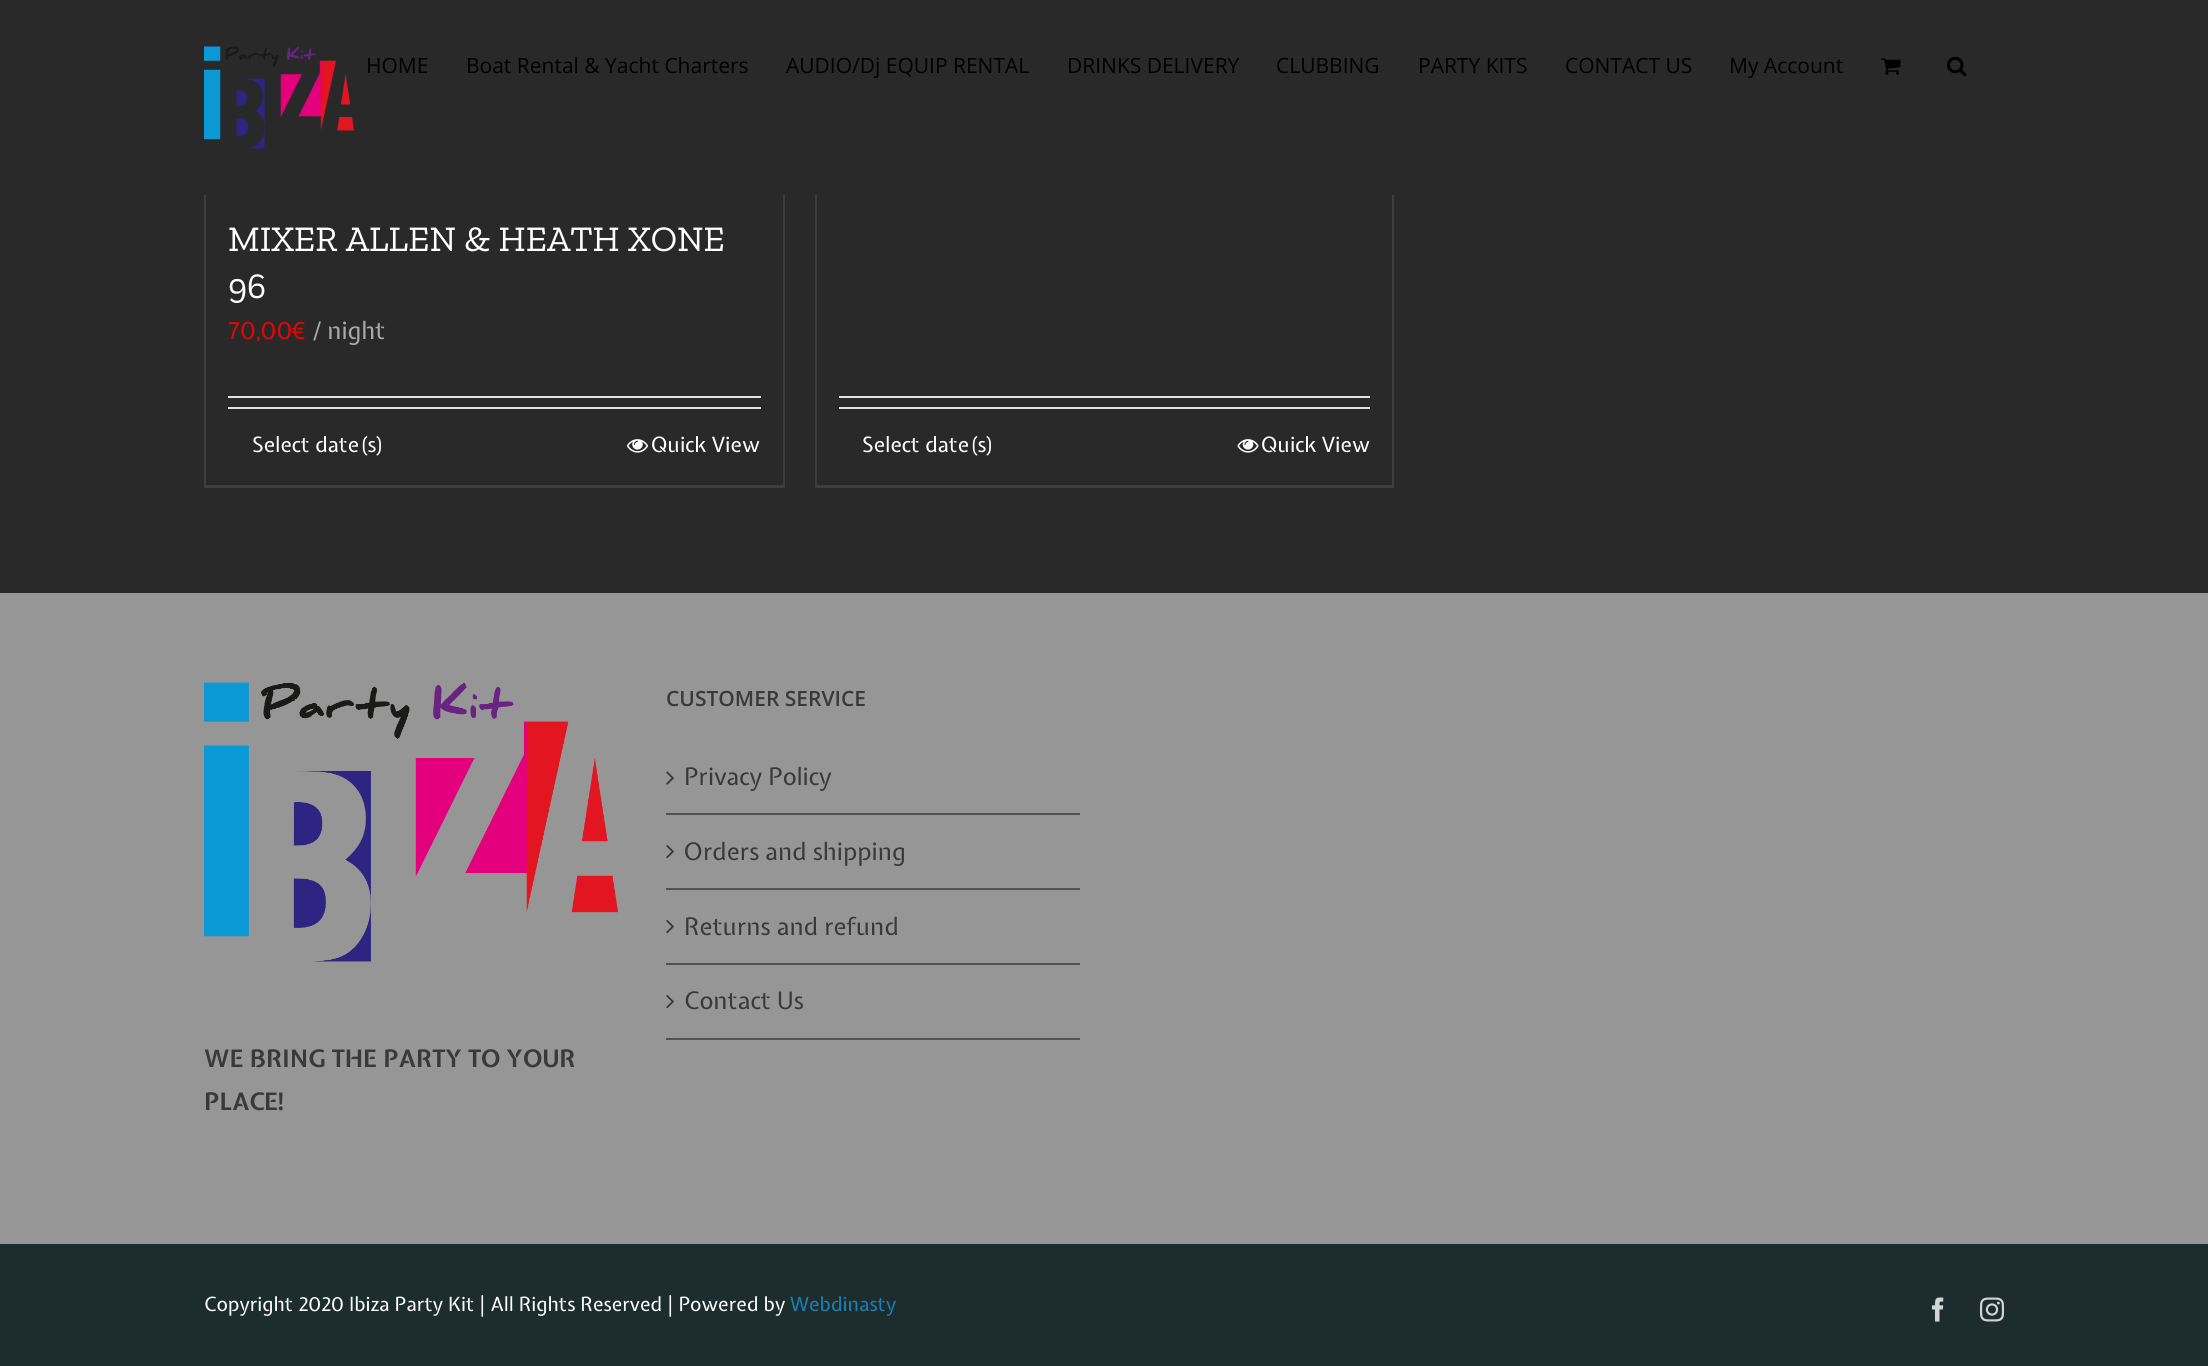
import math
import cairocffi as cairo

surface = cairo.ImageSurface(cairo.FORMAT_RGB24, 2208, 1366)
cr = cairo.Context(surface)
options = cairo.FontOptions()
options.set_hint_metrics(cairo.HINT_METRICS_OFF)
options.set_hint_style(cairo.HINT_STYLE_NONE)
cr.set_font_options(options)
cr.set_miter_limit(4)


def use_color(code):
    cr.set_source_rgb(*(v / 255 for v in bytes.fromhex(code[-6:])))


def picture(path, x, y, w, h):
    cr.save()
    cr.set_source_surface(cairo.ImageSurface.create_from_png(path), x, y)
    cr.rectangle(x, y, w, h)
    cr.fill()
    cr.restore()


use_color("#29292a")
cr.paint()
picture("img1.png", 204, 46, 150, 103)
cr.select_font_face("Open Sans")
cr.set_font_size(21)
use_color("#000000")
cr.move_to(366, 73)
cr.show_text("HOME")
cr.move_to(466, 73)
cr.show_text("Boat Rental & Yacht Charters")
cr.move_to(786, 73)
cr.show_text("AUDIO/Dj EQUIP RENTAL")
cr.move_to(1067, 73)
cr.show_text("DRINKS DELIVERY")
cr.move_to(1276, 73)
cr.show_text("CLUBBING")
cr.move_to(1418, 73)
cr.show_text("PARTY KITS")
cr.move_to(1565, 73)
cr.show_text("CONTACT US")
cr.move_to(1729, 73)
cr.show_text("My Account")
picture("img2.png", 1881, 58, 20, 17)
picture("img3.png", 1947, 56, 20, 21)
use_color("#3e3e3e")
cr.rectangle(783, 195, 2, 293)
cr.fill()
cr.rectangle(204, 485, 581, 3)
cr.fill()
cr.rectangle(204, 195, 2, 293)
cr.fill()
cr.select_font_face("Zilla Slab")
cr.set_font_size(36)
use_color("#ffffff")
cr.move_to(228, 251)
cr.show_text("MIXER ALLEN & HEATH XONE")
cr.move_to(228, 298)
cr.show_text("96")
cr.select_font_face("Expletus Sans")
cr.set_font_size(24)
use_color("#e10707")
cr.move_to(228, 339)
cr.show_text("70,00€")
use_color("#aaa9a9")
cr.move_to(313, 339)
cr.show_text("/ night")
use_color("#e2e2e2")
cr.rectangle(228, 396, 533, 2)
cr.fill()
cr.rectangle(228, 407, 533, 2)
cr.fill()
cr.set_font_size(21)
use_color("#ffffff")
cr.move_to(252, 452)
cr.show_text("Select date(s)")
picture("img4.png", 627, 439, 21, 14)
cr.move_to(651, 452)
cr.show_text("Quick View")
use_color("#3e3e3e")
cr.rectangle(1392, 195, 2, 293)
cr.fill()
cr.rectangle(815, 485, 579, 3)
cr.fill()
cr.rectangle(815, 195, 2, 293)
cr.fill()
use_color("#e2e2e2")
cr.rectangle(839, 396, 531, 2)
cr.fill()
cr.rectangle(839, 407, 531, 2)
cr.fill()
use_color("#ffffff")
cr.move_to(862, 452)
cr.show_text("Select date(s)")
picture("img5.png", 1237, 439, 22, 14)
cr.move_to(1261, 452)
cr.show_text("Quick View")
use_color("#969696")
cr.rectangle(0, 593, 2208, 651)
cr.fill()
cr.select_font_face("Open Sans SemiBold")
use_color("#393939")
cr.move_to(666, 706)
cr.show_text("CUSTOMER SERVICE")
use_color("#505152")
cr.rectangle(666, 813, 414, 2)
cr.fill()
picture("img6.png", 666, 771, 8, 14)
cr.select_font_face("Expletus Sans")
cr.set_font_size(24)
use_color("#393939")
cr.move_to(684, 785)
cr.show_text("Privacy Policy")
use_color("#505152")
cr.rectangle(666, 888, 414, 2)
cr.fill()
picture("img7.png", 666, 845, 8, 14)
use_color("#393939")
cr.move_to(684, 860)
cr.show_text("Orders and shipping")
use_color("#505152")
cr.rectangle(666, 963, 414, 2)
cr.fill()
picture("img7.png", 666, 920, 8, 14)
use_color("#393939")
cr.move_to(684, 935)
cr.show_text("Returns and refund")
use_color("#505152")
cr.rectangle(666, 1038, 414, 2)
cr.fill()
picture("img7.png", 666, 995, 8, 14)
use_color("#393939")
cr.move_to(684, 1009)
cr.show_text("Contact Us")
picture("img8.png", 204, 682, 414, 280)
cr.select_font_face("Expletus Sans", cairo.FONT_SLANT_NORMAL, cairo.FONT_WEIGHT_BOLD)
cr.move_to(204, 1067)
cr.show_text("WE BRING THE PARTY TO YOUR")
cr.move_to(204, 1110)
cr.show_text("PLACE!")
use_color("#1d2d2d")
cr.rectangle(0, 1244, 2208, 122)
cr.fill()
cr.select_font_face("Expletus Sans")
cr.set_font_size(19.5)
use_color("#ffffff")
cr.move_to(204, 1311)
cr.show_text("Copyright 2020 Ibiza Party Kit | All Rights Reserved | Powered by")
use_color("#1a80b6")
cr.move_to(790, 1311)
cr.show_text("Webdinasty")
picture("img9.png", 1932, 1297, 12, 25)
picture("img10.png", 1980, 1297, 24, 25)
surface.write_to_png("result.png")
